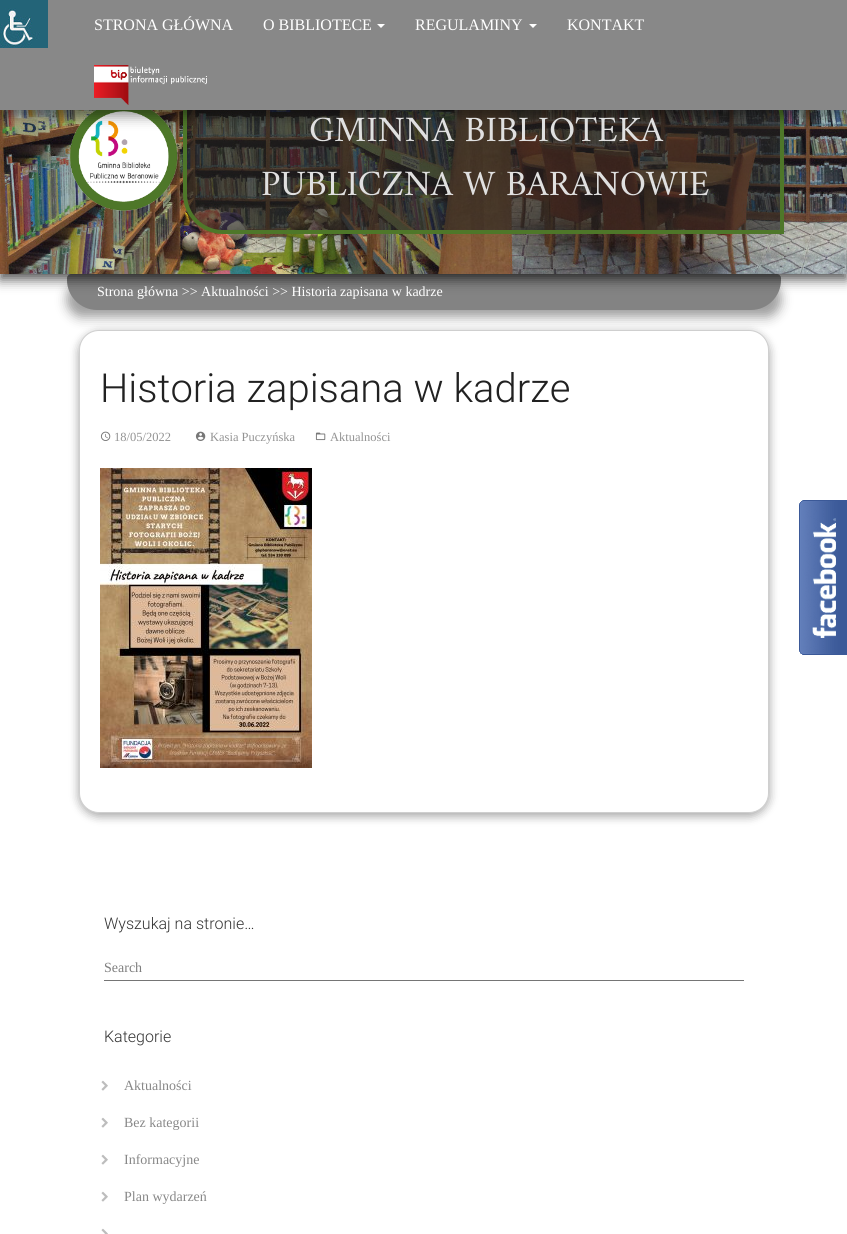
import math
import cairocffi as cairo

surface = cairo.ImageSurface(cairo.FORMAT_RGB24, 847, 1234)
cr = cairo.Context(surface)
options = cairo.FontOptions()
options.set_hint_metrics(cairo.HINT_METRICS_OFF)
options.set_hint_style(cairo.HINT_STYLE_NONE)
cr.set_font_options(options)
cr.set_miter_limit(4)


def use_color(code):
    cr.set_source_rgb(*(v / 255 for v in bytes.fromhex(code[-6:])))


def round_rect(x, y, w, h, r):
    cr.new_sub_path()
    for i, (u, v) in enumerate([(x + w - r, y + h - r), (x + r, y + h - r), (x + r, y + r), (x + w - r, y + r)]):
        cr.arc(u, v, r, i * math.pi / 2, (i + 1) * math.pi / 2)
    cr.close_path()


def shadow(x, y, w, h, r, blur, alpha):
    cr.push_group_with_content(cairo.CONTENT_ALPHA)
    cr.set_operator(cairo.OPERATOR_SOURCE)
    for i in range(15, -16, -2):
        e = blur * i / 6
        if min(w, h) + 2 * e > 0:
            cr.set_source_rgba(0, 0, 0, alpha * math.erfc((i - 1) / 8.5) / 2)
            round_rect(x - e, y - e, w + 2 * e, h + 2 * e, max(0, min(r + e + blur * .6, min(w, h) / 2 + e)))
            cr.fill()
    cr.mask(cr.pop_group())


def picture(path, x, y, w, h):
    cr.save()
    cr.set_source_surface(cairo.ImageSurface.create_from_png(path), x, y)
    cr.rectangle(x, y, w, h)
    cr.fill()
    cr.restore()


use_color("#ffffff")
cr.paint()
use_color("#000000")
shadow(67, 282, 714, 36, 30, 6, 0.3)
shadow(67, 279, 714, 36, 30, 3.5, 0.1)
use_color("#838383")
cr.new_path()
cr.move_to(71, 274)
cr.line_to(777, 274)
cr.curve_to(779, 274, 781, 276, 781, 278)
cr.line_to(781, 280)
cr.curve_to(781, 296.5, 767.5, 310, 751, 310)
cr.line_to(97, 310)
cr.curve_to(80.5, 310, 67, 296.5, 67, 280)
cr.line_to(67, 278)
cr.curve_to(67, 276, 69, 274, 71, 274)
cr.close_path()
cr.fill()
use_color("#000000")
shadow(0, 6, 847, 274, 0, 6, 0.6)
shadow(0, 3, 847, 274, 0, 2.5, 0.1)
picture("img3.png", 0, 110, 847, 164)
picture("img4.png", 69, 110, 109, 101)
cr.set_source_rgba(0.129, 0.129, 0.129, 0.6)
cr.new_path()
cr.move_to(185, 82)
cr.line_to(744, 82)
cr.curve_to(765, 82, 782, 99, 782, 120)
cr.line_to(782, 232)
cr.line_to(223, 232)
cr.curve_to(202, 232, 185, 215, 185, 194)
cr.close_path()
cr.fill_preserve()
use_color("#4e7729")
cr.set_line_width(4)
cr.stroke()
use_color("#000000")
shadow(0, 8, 847, 110, 0, 6, 0.3)
shadow(0, 5, 847, 110, 0, 3.5, 0.1)
use_color("#888888")
cr.rectangle(0, 0, 847, 110)
cr.fill()
picture("img1.png", 0, 0, 48, 48)
cr.select_font_face("Liberation Serif")
cr.set_font_size(16)
use_color("#ffffff")
cr.move_to(94, 30)
cr.show_text("STRONA GŁÓWNA")
cr.move_to(263, 30)
cr.show_text("O BIBLIOTECE")
cr.new_path()
cr.move_to(377, 24)
cr.line_to(385, 24)
cr.line_to(381, 28)
cr.close_path()
cr.fill()
cr.move_to(415, 30)
cr.show_text("REGULAMINY")
cr.new_path()
cr.move_to(529, 24)
cr.line_to(537, 24)
cr.line_to(533, 28)
cr.close_path()
cr.fill()
cr.move_to(567, 30)
cr.show_text("KONTAKT")
picture("img2.png", 94, 65, 113, 40)
cr.select_font_face("Amiri")
cr.set_font_size(36)
use_color("#e0e0e0")
cr.move_to(309, 141)
cr.show_text("GMINNA BIBLIOTEKA")
cr.move_to(261, 195)
cr.show_text("PUBLICZNA W BARANOWIE")
cr.select_font_face("Liberation Serif")
cr.set_font_size(14)
use_color("#ffffff")
cr.move_to(97, 296)
cr.show_text("Strona główna >> Aktualności >> Historia zapisana w kadrze")
use_color("#000000")
shadow(79, 333, 690, 483, 20, 5, 0.16)
shadow(79, 333, 690, 483, 20, 5, 0.23)
use_color("#ffffff")
round_rect(79.5, 330.5, 689, 482, 19.5)
cr.fill_preserve()
use_color("#cfcfcf")
cr.set_line_width(1)
cr.stroke()
cr.select_font_face("Roboto Light")
cr.set_font_size(40)
use_color("#212121")
cr.move_to(100, 402)
cr.show_text("Historia zapisana w kadrze")
picture("img5.png", 100, 431, 11, 10)
cr.select_font_face("Liberation Serif")
cr.set_font_size(12.5)
use_color("#939393")
cr.move_to(114, 441)
cr.show_text("18/05/2022")
picture("img6.png", 195, 431, 11, 10)
cr.move_to(210, 441)
cr.show_text("Kasia Puczyńska")
picture("img7.png", 315, 432, 11, 9)
cr.move_to(330, 441)
cr.show_text("Aktualności")
picture("img8.png", 100, 468, 212, 300)
cr.select_font_face("Roboto Light")
cr.set_font_size(16)
use_color("#333333")
cr.move_to(104, 929)
cr.show_text("Wyszukaj na stronie…")
cr.select_font_face("Liberation Serif")
cr.set_font_size(14)
use_color("#7e7e7e")
cr.move_to(104, 972)
cr.show_text("Search")
use_color("#757575")
cr.rectangle(104, 980, 640, 1)
cr.fill()
cr.select_font_face("Roboto Light")
cr.set_font_size(16)
use_color("#333333")
cr.move_to(104, 1042)
cr.show_text("Kategorie")
picture("img9.png", 101, 1080, 7, 11)
cr.select_font_face("Liberation Serif")
cr.set_font_size(14)
use_color("#888888")
cr.move_to(124, 1090)
cr.show_text("Aktualności")
picture("img9.png", 101, 1117, 7, 11)
cr.move_to(124, 1127)
cr.show_text("Bez kategorii")
picture("img9.png", 101, 1154, 7, 11)
cr.move_to(124, 1164)
cr.show_text("Informacyjne")
picture("img9.png", 101, 1191, 7, 11)
cr.move_to(124, 1201)
cr.show_text("Plan wydarzeń")
picture("img10.png", 101, 1228, 7, 6)
picture("img11.png", 799, 500, 48, 155)
surface.write_to_png("result.png")
